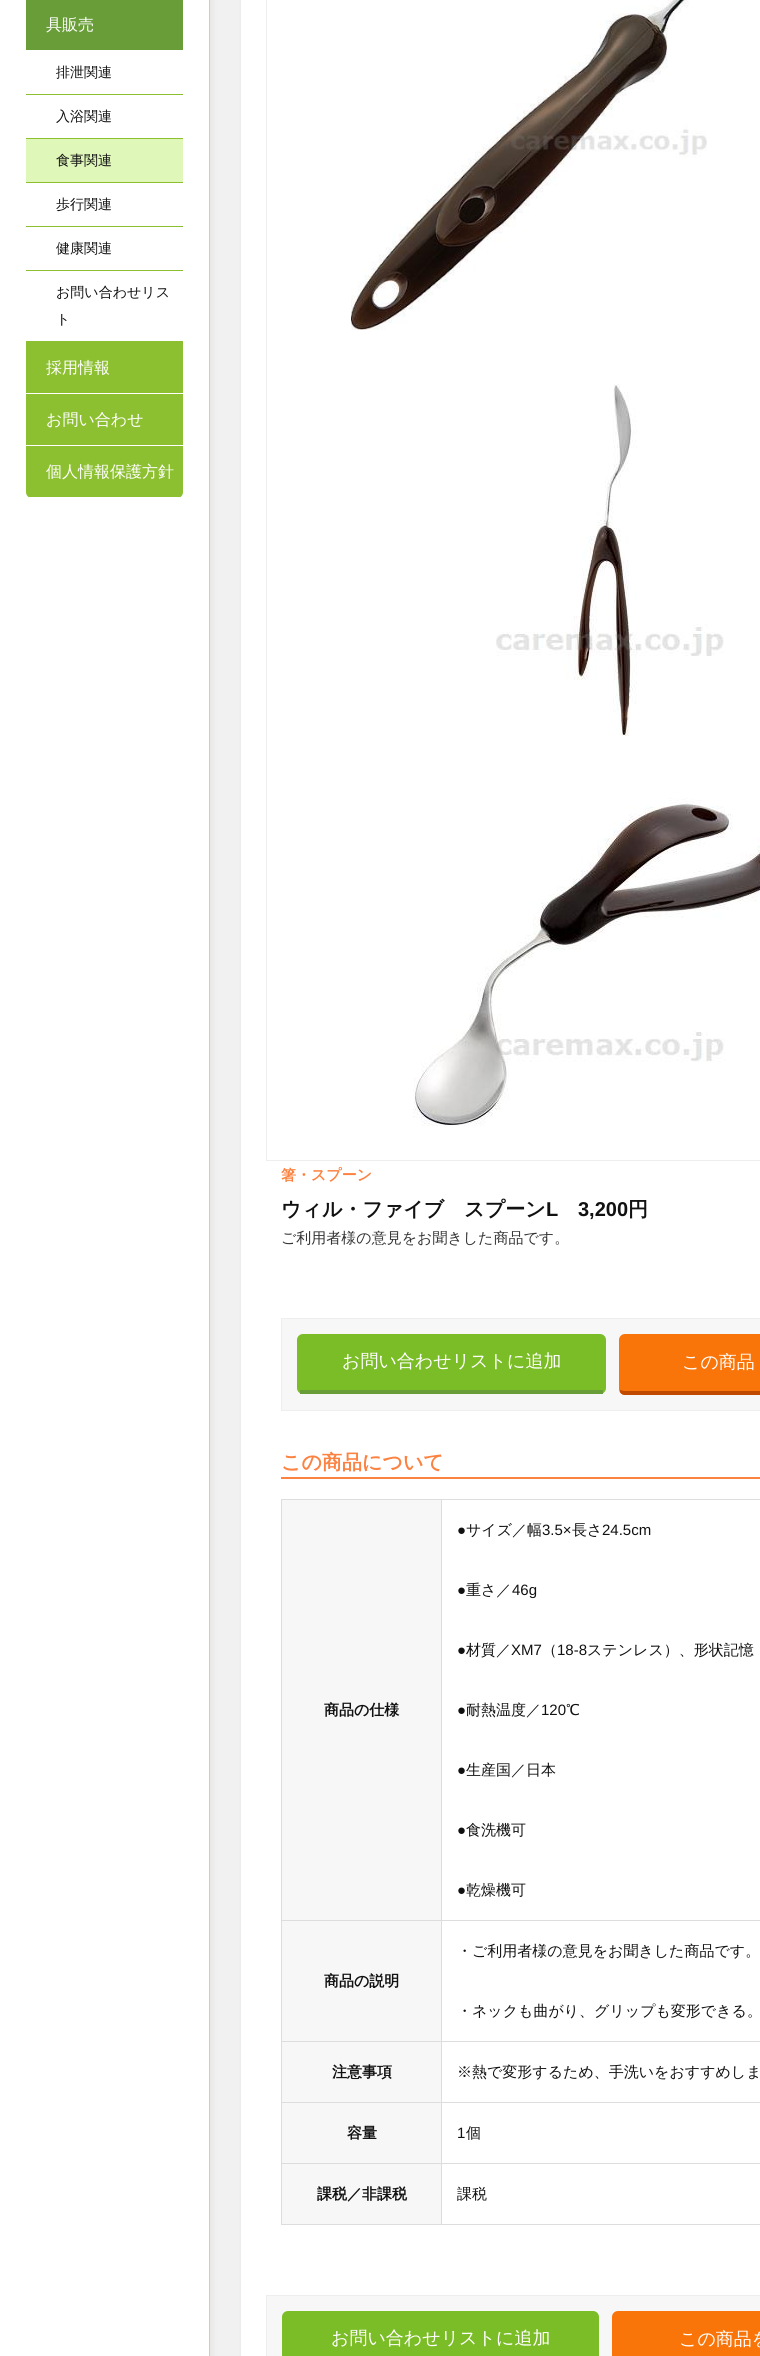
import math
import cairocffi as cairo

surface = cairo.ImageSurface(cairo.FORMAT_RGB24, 760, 2356)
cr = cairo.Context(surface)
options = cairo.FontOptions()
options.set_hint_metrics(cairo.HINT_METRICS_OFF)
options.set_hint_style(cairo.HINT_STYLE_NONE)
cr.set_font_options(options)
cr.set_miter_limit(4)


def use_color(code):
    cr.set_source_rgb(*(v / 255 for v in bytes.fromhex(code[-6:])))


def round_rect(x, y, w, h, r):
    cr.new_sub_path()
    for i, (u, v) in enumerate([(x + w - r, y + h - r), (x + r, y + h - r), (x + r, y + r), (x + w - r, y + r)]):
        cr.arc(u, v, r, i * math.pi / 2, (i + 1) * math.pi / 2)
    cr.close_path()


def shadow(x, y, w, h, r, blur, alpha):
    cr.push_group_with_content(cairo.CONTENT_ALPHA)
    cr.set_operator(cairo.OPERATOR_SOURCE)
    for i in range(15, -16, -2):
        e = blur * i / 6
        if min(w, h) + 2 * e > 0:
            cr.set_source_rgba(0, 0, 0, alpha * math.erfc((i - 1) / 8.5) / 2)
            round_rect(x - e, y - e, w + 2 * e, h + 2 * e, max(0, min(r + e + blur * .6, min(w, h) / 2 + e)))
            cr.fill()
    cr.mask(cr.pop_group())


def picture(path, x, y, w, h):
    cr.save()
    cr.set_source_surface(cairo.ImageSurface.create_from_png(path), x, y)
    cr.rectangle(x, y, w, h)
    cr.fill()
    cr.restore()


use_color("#f1f1f1")
cr.paint()
use_color("#e6e3e2")
shadow(4, -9, 208, 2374, 0, 3, 1)
use_color("#ffffff")
cr.rectangle(0, 0, 209, 2356)
cr.fill()
use_color("#cccccc")
cr.rectangle(209, 0, 1, 2356)
cr.fill()
use_color("#689d38")
cr.rectangle(26, 0, 157, 50)
cr.fill()
cr.select_font_face("WenQuanYi Zen Hei Medium")
cr.set_font_size(16)
use_color("#ffffff")
cr.move_to(46, 30)
cr.show_text("具販売")
use_color("#8dc031")
cr.rectangle(26, 94, 157, 1)
cr.fill()
cr.set_font_size(14)
use_color("#111111")
cr.move_to(56, 77)
cr.show_text("排泄関連")
use_color("#8dc031")
cr.rectangle(26, 138, 157, 1)
cr.fill()
use_color("#111111")
cr.move_to(56, 121)
cr.show_text("入浴関連")
use_color("#dff7b9")
cr.rectangle(26, 139, 157, 43)
cr.fill()
use_color("#8dc031")
cr.rectangle(26, 182, 157, 1)
cr.fill()
use_color("#111111")
cr.move_to(56, 165)
cr.show_text("食事関連")
use_color("#8dc031")
cr.rectangle(26, 226, 157, 1)
cr.fill()
use_color("#111111")
cr.move_to(56, 209)
cr.show_text("歩行関連")
use_color("#8dc031")
cr.rectangle(26, 270, 157, 1)
cr.fill()
use_color("#111111")
cr.move_to(56, 253)
cr.show_text("健康関連")
use_color("#8dc031")
cr.rectangle(26, 341, 157, 52)
cr.fill()
use_color("#111111")
cr.move_to(56, 297)
cr.show_text("お問い合わせリス")
cr.move_to(56, 324)
cr.show_text("ト")
cr.set_font_size(16)
use_color("#ffffff")
cr.move_to(46, 373)
cr.show_text("採用情報")
use_color("#8dc031")
cr.rectangle(26, 394, 157, 51)
cr.fill()
use_color("#ffffff")
cr.move_to(46, 425)
cr.show_text("お問い合わせ")
use_color("#8dc031")
cr.new_path()
cr.move_to(26, 446)
cr.line_to(183, 446)
cr.line_to(183, 492)
cr.curve_to(183, 495.5, 180.5, 498, 177, 498)
cr.line_to(32, 498)
cr.curve_to(28.5, 498, 26, 495.5, 26, 492)
cr.close_path()
cr.fill()
use_color("#ffffff")
cr.rectangle(29, 497, 151, 1)
cr.fill()
cr.move_to(46, 477)
cr.show_text("個人情報保護方針")
use_color("#dddddd")
shadow(242, -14, 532, 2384, 8, 2, 1)
use_color("#ffffff")
cr.rectangle(241, 0, 519, 2356)
cr.fill()
cr.rectangle(266.5, -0.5, 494, 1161)
use_color("#eeeeee")
cr.set_line_width(1)
cr.stroke()
picture("img1.png", 351, 0, 356, 330)
picture("img2.png", 496, 384, 228, 352)
picture("img3.png", 413, 798, 347, 328)
cr.select_font_face("WenQuanYi Zen Hei", cairo.FONT_SLANT_NORMAL, cairo.FONT_WEIGHT_BOLD)
cr.set_font_size(15)
use_color("#fb8241")
cr.move_to(281, 1180)
cr.show_text("箸・スプーン")
cr.set_font_size(20)
use_color("#111111")
cr.move_to(281, 1216)
cr.show_text("ウィル・ファイブ　スプーン")
cr.select_font_face("Liberation Sans", cairo.FONT_SLANT_NORMAL, cairo.FONT_WEIGHT_BOLD)
cr.move_to(546, 1216)
cr.show_text("L")
cr.move_to(578, 1216)
cr.show_text("3,200")
cr.select_font_face("WenQuanYi Zen Hei", cairo.FONT_SLANT_NORMAL, cairo.FONT_WEIGHT_BOLD)
cr.move_to(628, 1216)
cr.show_text("円")
cr.select_font_face("WenQuanYi Zen Hei Medium")
cr.set_font_size(15)
use_color("#333333")
cr.move_to(281, 1243)
cr.show_text("ご利用者様の意見をお聞きした商品です。")
use_color("#f7f7f7")
cr.rectangle(281.5, 1318.5, 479, 92)
cr.fill_preserve()
use_color("#eeeeee")
cr.stroke()
use_color("#7bbd27")
round_rect(297, 1334, 309, 60, 6)
cr.fill()
use_color("#689d38")
cr.rectangle(300, 1390, 303, 4)
cr.fill()
cr.set_font_size(18)
use_color("#ffffff")
cr.move_to(342, 1367)
cr.show_text("お問い合わせリストに追加")
use_color("#f97509")
round_rect(619, 1334, 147, 61, 6)
cr.fill()
use_color("#bf4900")
cr.new_path()
cr.move_to(625, 1395)
cr.line_to(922, 1395)
cr.curve_to(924, 1395, 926, 1394, 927, 1392)
cr.line_to(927, 1390)
cr.curve_to(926, 1390, 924, 1391, 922, 1391)
cr.line_to(625, 1391)
cr.curve_to(623, 1391, 621, 1390, 620, 1390)
cr.line_to(620, 1392)
cr.curve_to(621, 1394, 623, 1395, 625, 1395)
cr.close_path()
cr.fill()
use_color("#ffffff")
cr.move_to(682, 1368)
cr.show_text("この商品")
use_color("#fb8241")
cr.rectangle(281, 1477, 479, 2)
cr.fill()
cr.select_font_face("WenQuanYi Zen Hei", cairo.FONT_SLANT_NORMAL, cairo.FONT_WEIGHT_BOLD)
cr.set_font_size(20)
cr.move_to(281, 1469)
cr.show_text("この商品について")
use_color("#dddddd")
cr.rectangle(281, 1499, 479, 1)
cr.fill()
cr.rectangle(281, 2224, 479, 1)
cr.fill()
cr.rectangle(281, 1499, 1, 726)
cr.fill()
use_color("#f7f7f7")
cr.rectangle(282, 1500, 159, 420)
cr.fill()
cr.set_font_size(15)
use_color("#111111")
cr.move_to(324, 1715)
cr.show_text("商品の仕様")
use_color("#dddddd")
cr.rectangle(441, 1920, 319, 1)
cr.fill()
cr.rectangle(441, 2041, 319, 1)
cr.fill()
cr.rectangle(441, 2102, 319, 1)
cr.fill()
cr.rectangle(441, 2163, 319, 1)
cr.fill()
cr.rectangle(441, 2163, 1, 62)
cr.fill()
cr.rectangle(281, 2163, 161, 1)
cr.fill()
cr.rectangle(441, 2102, 1, 62)
cr.fill()
cr.rectangle(281, 2102, 161, 1)
cr.fill()
cr.rectangle(441, 2041, 1, 62)
cr.fill()
cr.rectangle(281, 2041, 161, 1)
cr.fill()
cr.rectangle(441, 1920, 1, 122)
cr.fill()
cr.rectangle(281, 1920, 161, 1)
cr.fill()
cr.rectangle(441, 1499, 1, 422)
cr.fill()
cr.select_font_face("Liberation Sans")
use_color("#111111")
cr.move_to(457, 1535)
cr.show_text("●")
cr.select_font_face("WenQuanYi Zen Hei Medium")
cr.move_to(466, 1535)
cr.show_text("サイズ／幅")
cr.select_font_face("Liberation Sans")
cr.move_to(542, 1535)
cr.show_text("3.5×")
cr.select_font_face("WenQuanYi Zen Hei Medium")
cr.move_to(572, 1535)
cr.show_text("長さ")
cr.select_font_face("Liberation Sans")
cr.move_to(602, 1535)
cr.show_text("24.5cm")
cr.move_to(457, 1595)
cr.show_text("●")
cr.select_font_face("WenQuanYi Zen Hei Medium")
cr.move_to(466, 1595)
cr.show_text("重さ／")
cr.select_font_face("Liberation Sans")
cr.move_to(512, 1595)
cr.show_text("46g")
cr.move_to(457, 1655)
cr.show_text("●")
cr.select_font_face("WenQuanYi Zen Hei Medium")
cr.move_to(466, 1655)
cr.show_text("材質／")
cr.select_font_face("Liberation Sans")
cr.move_to(511, 1655)
cr.show_text("XM7")
cr.select_font_face("WenQuanYi Zen Hei Medium")
cr.move_to(542, 1655)
cr.show_text("（")
cr.select_font_face("Liberation Sans")
cr.move_to(557, 1655)
cr.show_text("18-8")
cr.select_font_face("WenQuanYi Zen Hei Medium")
cr.move_to(587, 1655)
cr.show_text("ステンレス）、形状記憶")
cr.select_font_face("Liberation Sans")
cr.move_to(457, 1715)
cr.show_text("●")
cr.select_font_face("WenQuanYi Zen Hei Medium")
cr.move_to(466, 1715)
cr.show_text("耐熱温度／")
cr.select_font_face("Liberation Sans")
cr.move_to(541, 1715)
cr.show_text("120")
cr.select_font_face("WenQuanYi Zen Hei Medium")
cr.move_to(566, 1715)
cr.show_text("℃")
cr.select_font_face("Liberation Sans")
cr.move_to(457, 1775)
cr.show_text("●")
cr.select_font_face("WenQuanYi Zen Hei Medium")
cr.move_to(466, 1775)
cr.show_text("生産国／日本")
cr.select_font_face("Liberation Sans")
cr.move_to(457, 1835)
cr.show_text("●")
cr.select_font_face("WenQuanYi Zen Hei Medium")
cr.move_to(466, 1835)
cr.show_text("食洗機可")
cr.select_font_face("Liberation Sans")
cr.move_to(457, 1895)
cr.show_text("●")
cr.select_font_face("WenQuanYi Zen Hei Medium")
cr.move_to(466, 1895)
cr.show_text("乾燥機可")
use_color("#f7f7f7")
cr.rectangle(282, 1921, 159, 120)
cr.fill()
cr.select_font_face("WenQuanYi Zen Hei", cairo.FONT_SLANT_NORMAL, cairo.FONT_WEIGHT_BOLD)
use_color("#111111")
cr.move_to(324, 1986)
cr.show_text("商品の説明")
cr.select_font_face("WenQuanYi Zen Hei Medium")
cr.move_to(457, 1956)
cr.show_text("・ご利用者様の意見をお聞きした商品です。")
cr.move_to(457, 2016)
cr.show_text("・ネックも曲がり、グリップも変形できる。")
use_color("#f7f7f7")
cr.rectangle(282, 2042, 159, 60)
cr.fill()
cr.select_font_face("WenQuanYi Zen Hei", cairo.FONT_SLANT_NORMAL, cairo.FONT_WEIGHT_BOLD)
use_color("#111111")
cr.move_to(332, 2077)
cr.show_text("注意事項")
cr.select_font_face("WenQuanYi Zen Hei Medium")
cr.move_to(457, 2077)
cr.show_text("※熱で変形するため、手洗いをおすすめしま")
use_color("#f7f7f7")
cr.rectangle(282, 2103, 159, 60)
cr.fill()
cr.select_font_face("WenQuanYi Zen Hei", cairo.FONT_SLANT_NORMAL, cairo.FONT_WEIGHT_BOLD)
use_color("#111111")
cr.move_to(347, 2138)
cr.show_text("容量")
cr.select_font_face("Liberation Sans")
cr.move_to(457, 2138)
cr.show_text("1")
cr.select_font_face("WenQuanYi Zen Hei Medium")
cr.move_to(466, 2138)
cr.show_text("個")
use_color("#f7f7f7")
cr.rectangle(282, 2164, 159, 60)
cr.fill()
cr.select_font_face("WenQuanYi Zen Hei", cairo.FONT_SLANT_NORMAL, cairo.FONT_WEIGHT_BOLD)
use_color("#111111")
cr.move_to(317, 2199)
cr.show_text("課税／非課税")
cr.select_font_face("WenQuanYi Zen Hei Medium")
cr.move_to(457, 2199)
cr.show_text("課税")
use_color("#f7f7f7")
cr.rectangle(266.5, 2295.5, 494, 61)
cr.fill_preserve()
use_color("#eeeeee")
cr.stroke()
use_color("#7bbd27")
round_rect(282, 2311, 317, 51, 6)
cr.fill()
cr.set_font_size(18)
use_color("#ffffff")
cr.move_to(331, 2344)
cr.show_text("お問い合わせリストに追加")
use_color("#f97509")
round_rect(612, 2311, 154, 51, 6)
cr.fill()
use_color("#ffffff")
cr.move_to(679, 2345)
cr.show_text("この商品を")
surface.write_to_png("result.png")
